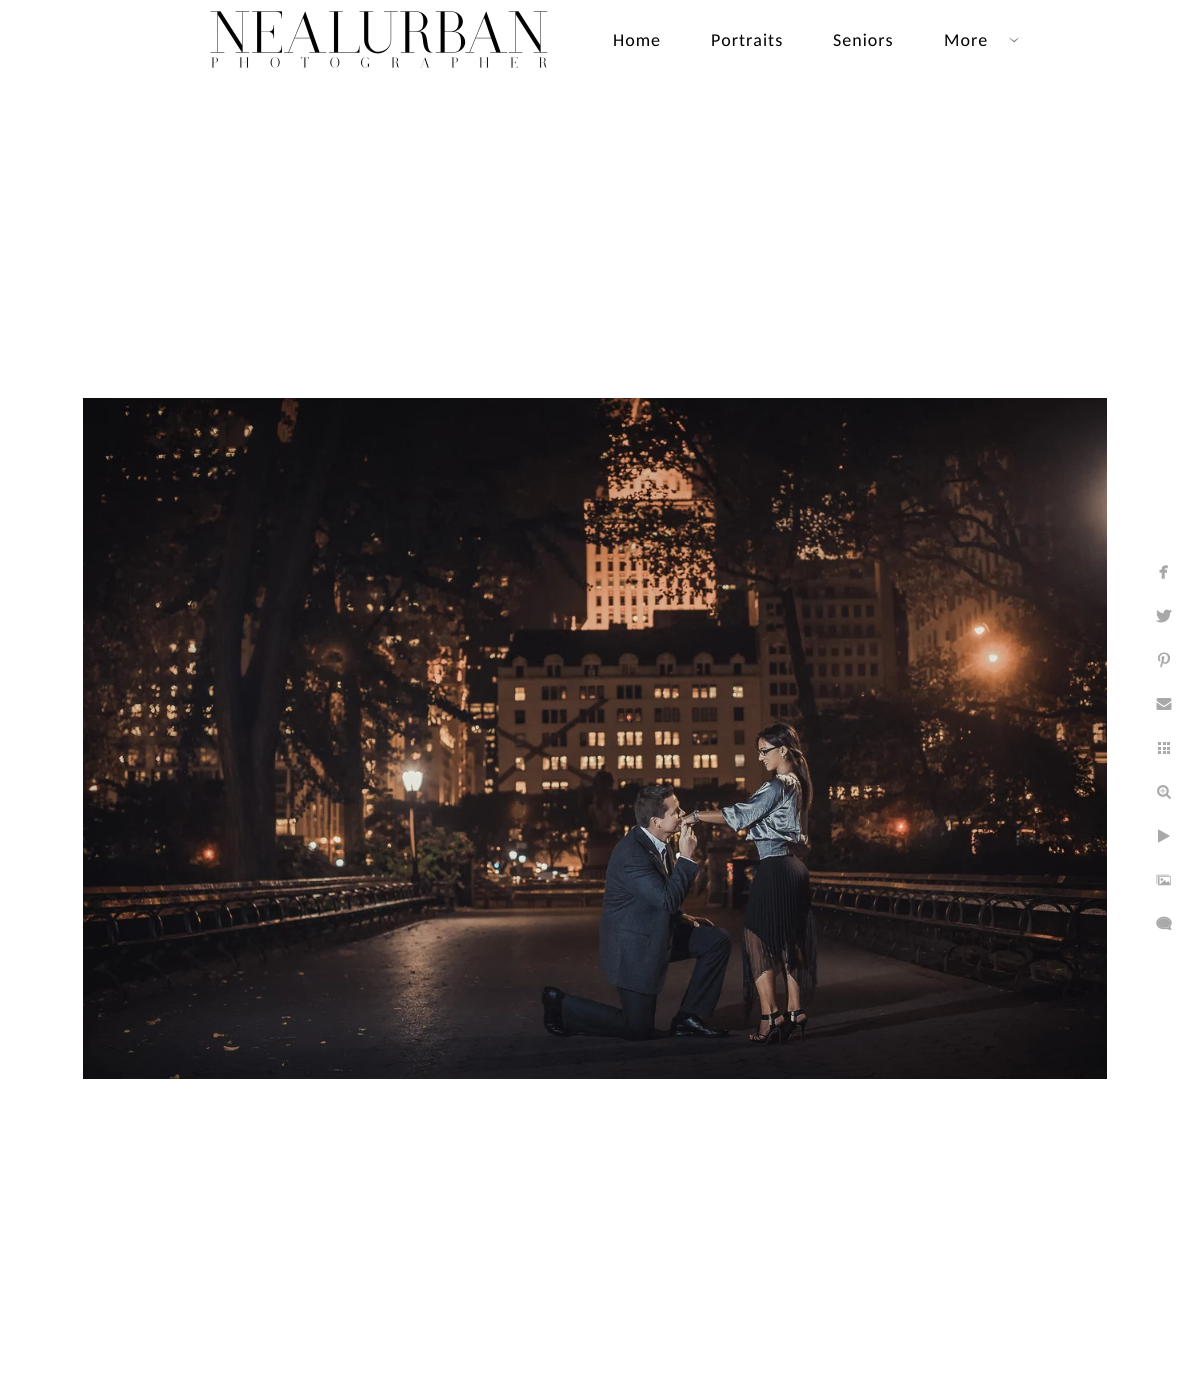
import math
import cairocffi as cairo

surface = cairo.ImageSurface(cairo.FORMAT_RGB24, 1191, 1395)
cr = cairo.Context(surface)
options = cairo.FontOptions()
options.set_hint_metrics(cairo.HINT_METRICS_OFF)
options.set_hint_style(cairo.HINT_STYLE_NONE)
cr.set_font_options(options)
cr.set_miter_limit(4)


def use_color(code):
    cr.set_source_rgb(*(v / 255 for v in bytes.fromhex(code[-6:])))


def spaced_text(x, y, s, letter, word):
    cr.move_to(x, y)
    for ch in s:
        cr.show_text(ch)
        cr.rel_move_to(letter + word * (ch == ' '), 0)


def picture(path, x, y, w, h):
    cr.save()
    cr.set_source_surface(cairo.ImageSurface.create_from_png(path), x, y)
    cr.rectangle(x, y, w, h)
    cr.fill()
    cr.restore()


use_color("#ffffff")
cr.paint()
picture("img1.png", 210, 11, 338, 57)
cr.select_font_face("Carlito")
cr.set_font_size(18)
use_color("#000000")
spaced_text(613, 46, "Home", 1, 0)
spaced_text(711, 46, "Portraits", 1, 0)
spaced_text(833, 46, "Seniors", 1, 0)
spaced_text(944, 46, "More", 1, 0)
picture("img2.png", 1009, 37, 10, 6)
picture("img3.png", 83, 398, 1024, 681)
picture("img4.png", 1159, 565, 9, 14)
picture("img5.png", 1156, 609, 16, 14)
picture("img6.png", 1158, 652, 12, 16)
picture("img7.png", 1156, 698, 16, 12)
picture("img8.png", 1158, 742, 12, 12)
picture("img9.png", 1157, 785, 14, 14)
picture("img10.png", 1158, 829, 12, 14)
picture("img11.png", 1156, 874, 15, 12)
picture("img12.png", 1156, 916, 16, 15)
surface.write_to_png("result.png")
